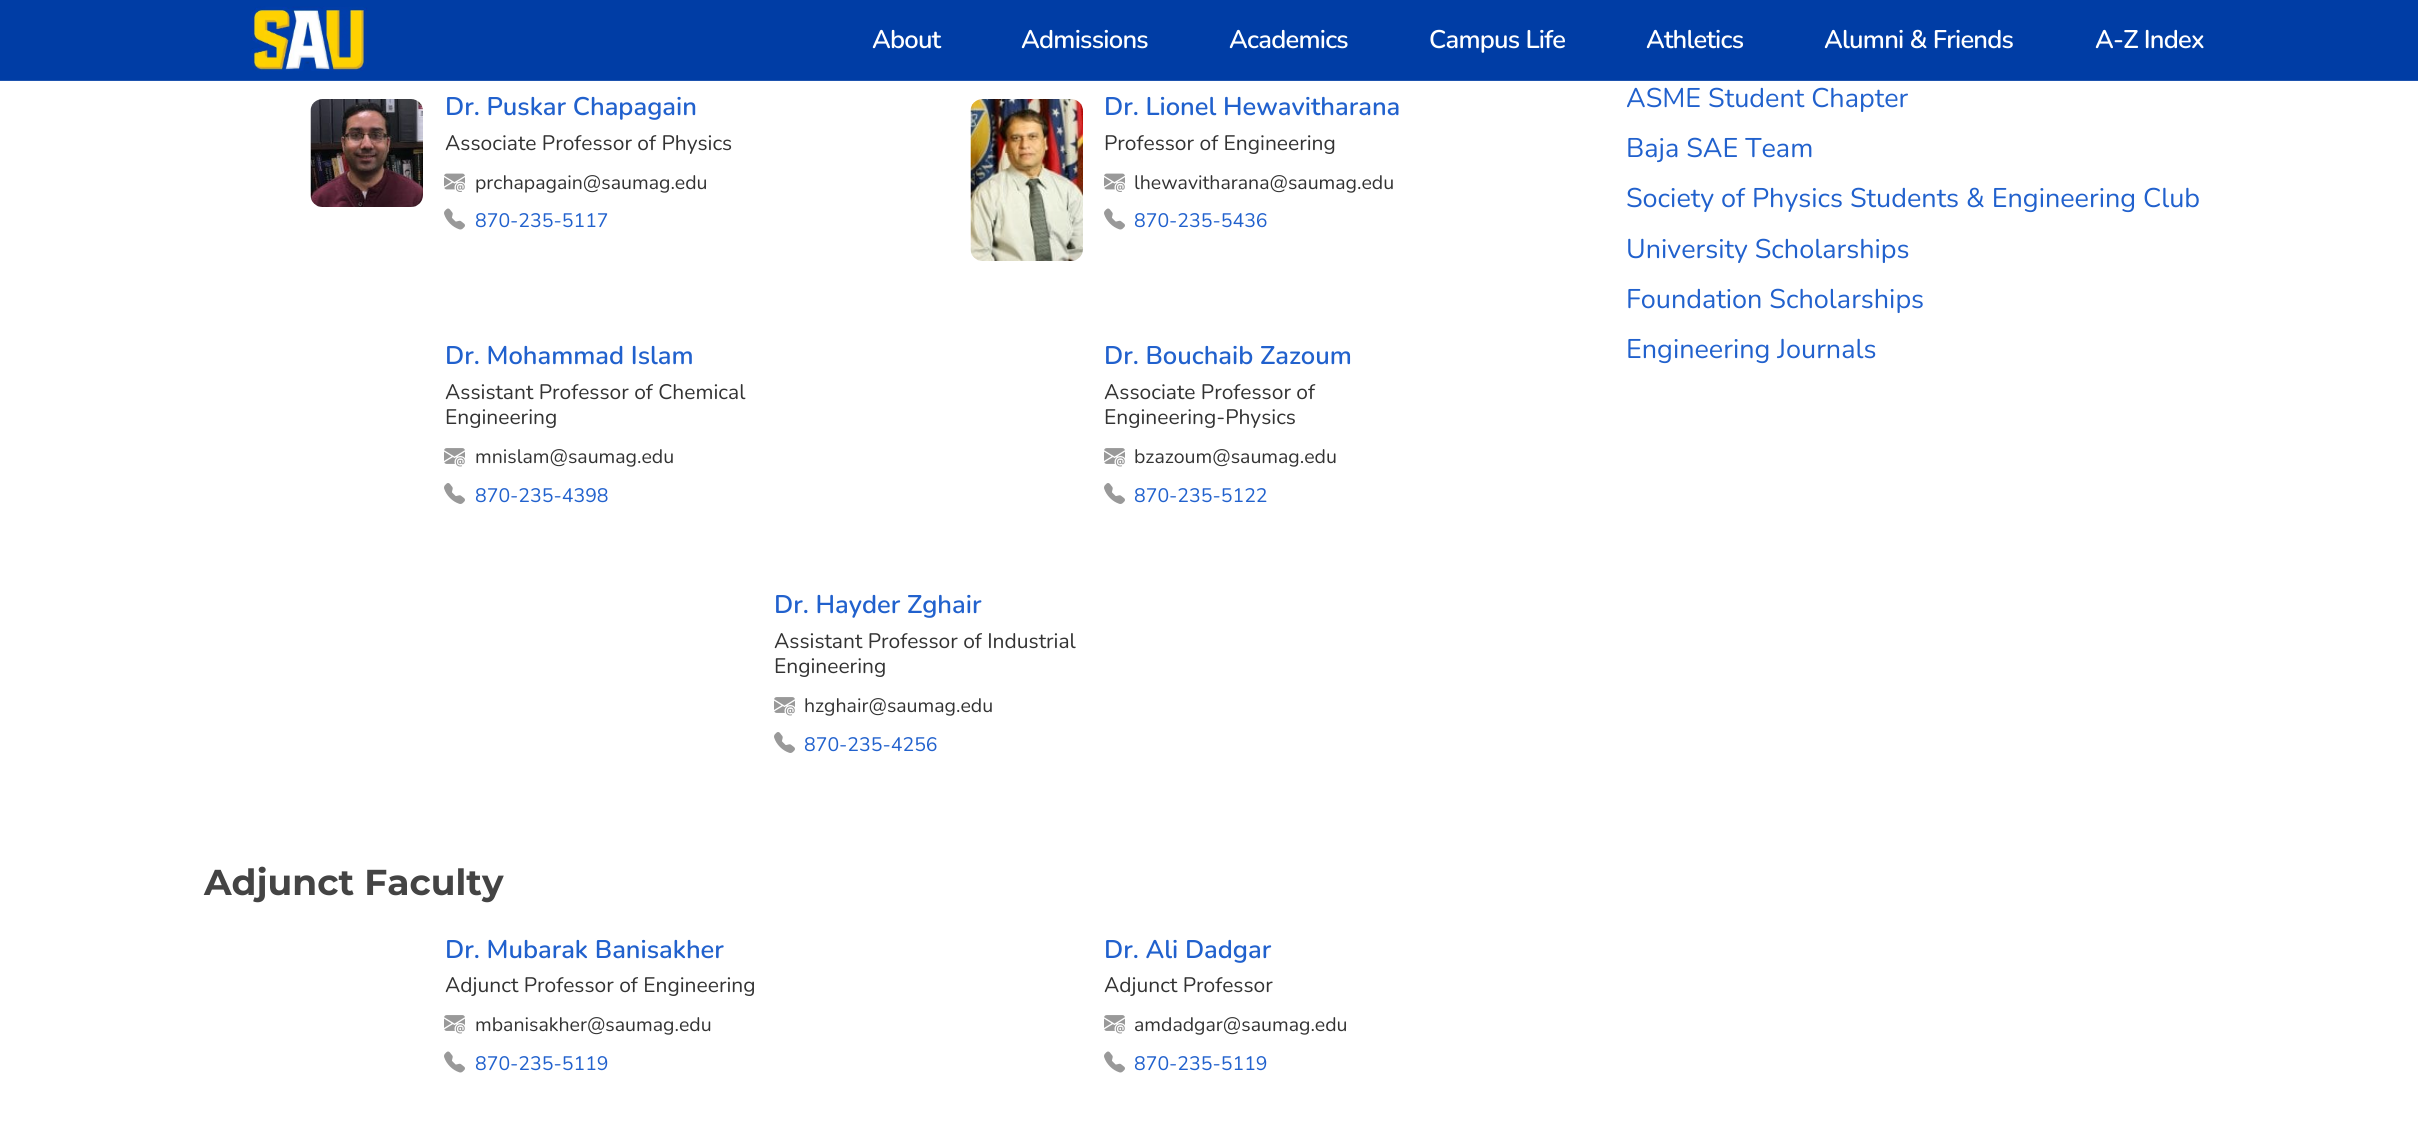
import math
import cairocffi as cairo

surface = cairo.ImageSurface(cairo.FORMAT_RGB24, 2418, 1143)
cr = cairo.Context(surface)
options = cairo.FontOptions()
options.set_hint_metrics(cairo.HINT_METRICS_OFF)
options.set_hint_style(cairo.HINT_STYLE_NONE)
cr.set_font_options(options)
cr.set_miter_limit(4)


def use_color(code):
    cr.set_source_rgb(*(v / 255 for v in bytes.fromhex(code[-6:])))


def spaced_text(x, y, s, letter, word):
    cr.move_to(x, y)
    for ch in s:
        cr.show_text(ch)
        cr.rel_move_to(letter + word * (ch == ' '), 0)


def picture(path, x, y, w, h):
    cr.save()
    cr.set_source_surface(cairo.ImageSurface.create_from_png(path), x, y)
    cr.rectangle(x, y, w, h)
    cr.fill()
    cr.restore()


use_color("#ffffff")
cr.paint()
use_color("#003da5")
cr.rectangle(0, 0, 2418, 80)
cr.fill()
picture("img1.png", 250, 6, 117, 65)
cr.set_source_rgba(0, 0.239, 0.647, 0.88)
cr.rectangle(0, 80, 2418, 1)
cr.fill()
cr.select_font_face("Nunito SemiBold")
cr.set_font_size(25.5)
use_color("#ffffff")
spaced_text(872, 48, "About", -0.75, 0)
spaced_text(1021, 48, "Admissions", -0.75, 0)
spaced_text(1229, 48, "Academics", -0.75, 0)
spaced_text(1429, 48, "Campus Life", -0.75, 0)
spaced_text(1646, 48, "Athletics", -0.75, 0)
spaced_text(1824, 48, "Alumni & Friends", -0.75, 0)
spaced_text(2095, 48, "A-Z Index", -0.75, 0)
picture("img2.png", 310, 99, 113, 108)
use_color("#2161cd")
cr.move_to(445, 115)
cr.show_text("Dr. Puskar Chapagain")
cr.select_font_face("Nunito")
cr.set_font_size(21)
use_color("#333333")
cr.move_to(445, 150)
cr.show_text("Associate Professor of Physics")
picture("img3.png", 444, 173, 21, 19)
cr.set_font_size(19.5)
cr.move_to(475, 189)
cr.show_text("prchapagain@saumag.edu")
picture("img4.png", 444, 208, 21, 22)
use_color("#2161cd")
cr.move_to(475, 227)
cr.show_text("870-235-5117")
picture("img5.png", 970, 99, 113, 162)
cr.select_font_face("Nunito SemiBold")
cr.set_font_size(25.5)
cr.move_to(1104, 115)
cr.show_text("Dr. Lionel Hewavitharana")
cr.select_font_face("Nunito")
cr.set_font_size(21)
use_color("#333333")
cr.move_to(1104, 150)
cr.show_text("Professor of Engineering")
picture("img3.png", 1104, 173, 21, 19)
cr.set_font_size(19.5)
cr.move_to(1134, 189)
cr.show_text("lhewavitharana@saumag.edu")
picture("img4.png", 1104, 208, 21, 22)
use_color("#2161cd")
cr.move_to(1134, 227)
cr.show_text("870-235-5436")
cr.select_font_face("Nunito SemiBold")
cr.set_font_size(25.5)
cr.move_to(445, 364)
cr.show_text("Dr. Mohammad Islam")
cr.select_font_face("Nunito")
cr.set_font_size(21)
use_color("#333333")
cr.move_to(445, 399)
cr.show_text("Assistant Professor of Chemical")
cr.move_to(445, 424)
cr.show_text("Engineering")
picture("img6.png", 444, 448, 21, 19)
cr.set_font_size(19.5)
cr.move_to(475, 463)
cr.show_text("mnislam@saumag.edu")
picture("img7.png", 444, 483, 21, 21)
use_color("#2161cd")
cr.move_to(475, 502)
cr.show_text("870-235-4398")
cr.select_font_face("Nunito SemiBold")
cr.set_font_size(25.5)
cr.move_to(1104, 364)
cr.show_text("Dr. Bouchaib Zazoum")
cr.select_font_face("Nunito")
cr.set_font_size(21)
use_color("#333333")
cr.move_to(1104, 399)
cr.show_text("Associate Professor of")
cr.move_to(1104, 424)
cr.show_text("Engineering-Physics")
picture("img6.png", 1104, 448, 21, 19)
cr.set_font_size(19.5)
cr.move_to(1134, 463)
cr.show_text("bzazoum@saumag.edu")
picture("img7.png", 1104, 483, 21, 21)
use_color("#2161cd")
cr.move_to(1134, 502)
cr.show_text("870-235-5122")
cr.select_font_face("Nunito SemiBold")
cr.set_font_size(25.5)
cr.move_to(774, 613)
cr.show_text("Dr. Hayder Zghair")
cr.select_font_face("Nunito")
cr.set_font_size(21)
use_color("#333333")
cr.move_to(774, 648)
cr.show_text("Assistant Professor of Industrial")
cr.move_to(774, 673)
cr.show_text("Engineering")
picture("img6.png", 774, 697, 21, 19)
cr.set_font_size(19.5)
cr.move_to(804, 712)
cr.show_text("hzghair@saumag.edu")
picture("img7.png", 774, 732, 21, 21)
use_color("#2161cd")
cr.move_to(804, 751)
cr.show_text("870-235-4256")
cr.select_font_face("Montserrat", cairo.FONT_SLANT_NORMAL, cairo.FONT_WEIGHT_BOLD)
cr.set_font_size(36)
use_color("#444444")
cr.move_to(204, 895)
cr.show_text("Adjunct Faculty")
cr.select_font_face("Nunito SemiBold")
cr.set_font_size(25.5)
use_color("#2161cd")
cr.move_to(445, 958)
cr.show_text("Dr. Mubarak Banisakher")
cr.select_font_face("Nunito")
cr.set_font_size(21)
use_color("#333333")
cr.move_to(445, 992)
cr.show_text("Adjunct Professor of Engineering")
picture("img6.png", 444, 1015, 21, 19)
cr.set_font_size(19.5)
cr.move_to(475, 1031)
cr.show_text("mbanisakher@saumag.edu")
picture("img4.png", 444, 1051, 21, 22)
use_color("#2161cd")
cr.move_to(475, 1070)
cr.show_text("870-235-5119")
cr.select_font_face("Nunito SemiBold")
cr.set_font_size(25.5)
cr.move_to(1104, 958)
cr.show_text("Dr. Ali Dadgar")
cr.select_font_face("Nunito")
cr.set_font_size(21)
use_color("#333333")
cr.move_to(1104, 992)
cr.show_text("Adjunct Professor")
picture("img6.png", 1104, 1015, 21, 19)
cr.set_font_size(19.5)
cr.move_to(1134, 1031)
cr.show_text("amdadgar@saumag.edu")
picture("img4.png", 1104, 1051, 21, 22)
use_color("#2161cd")
cr.move_to(1134, 1070)
cr.show_text("870-235-5119")
cr.set_font_size(27)
cr.move_to(1626, 107)
cr.show_text("ASME Student Chapter")
cr.move_to(1626, 157)
cr.show_text("Baja SAE Team")
cr.move_to(1626, 207)
cr.show_text("Society of Physics Students & Engineering Club")
cr.move_to(1626, 258)
cr.show_text("University Scholarships")
cr.move_to(1626, 308)
cr.show_text("Foundation Scholarships")
cr.move_to(1626, 358)
cr.show_text("Engineering Journals")
surface.write_to_png("result.png")
